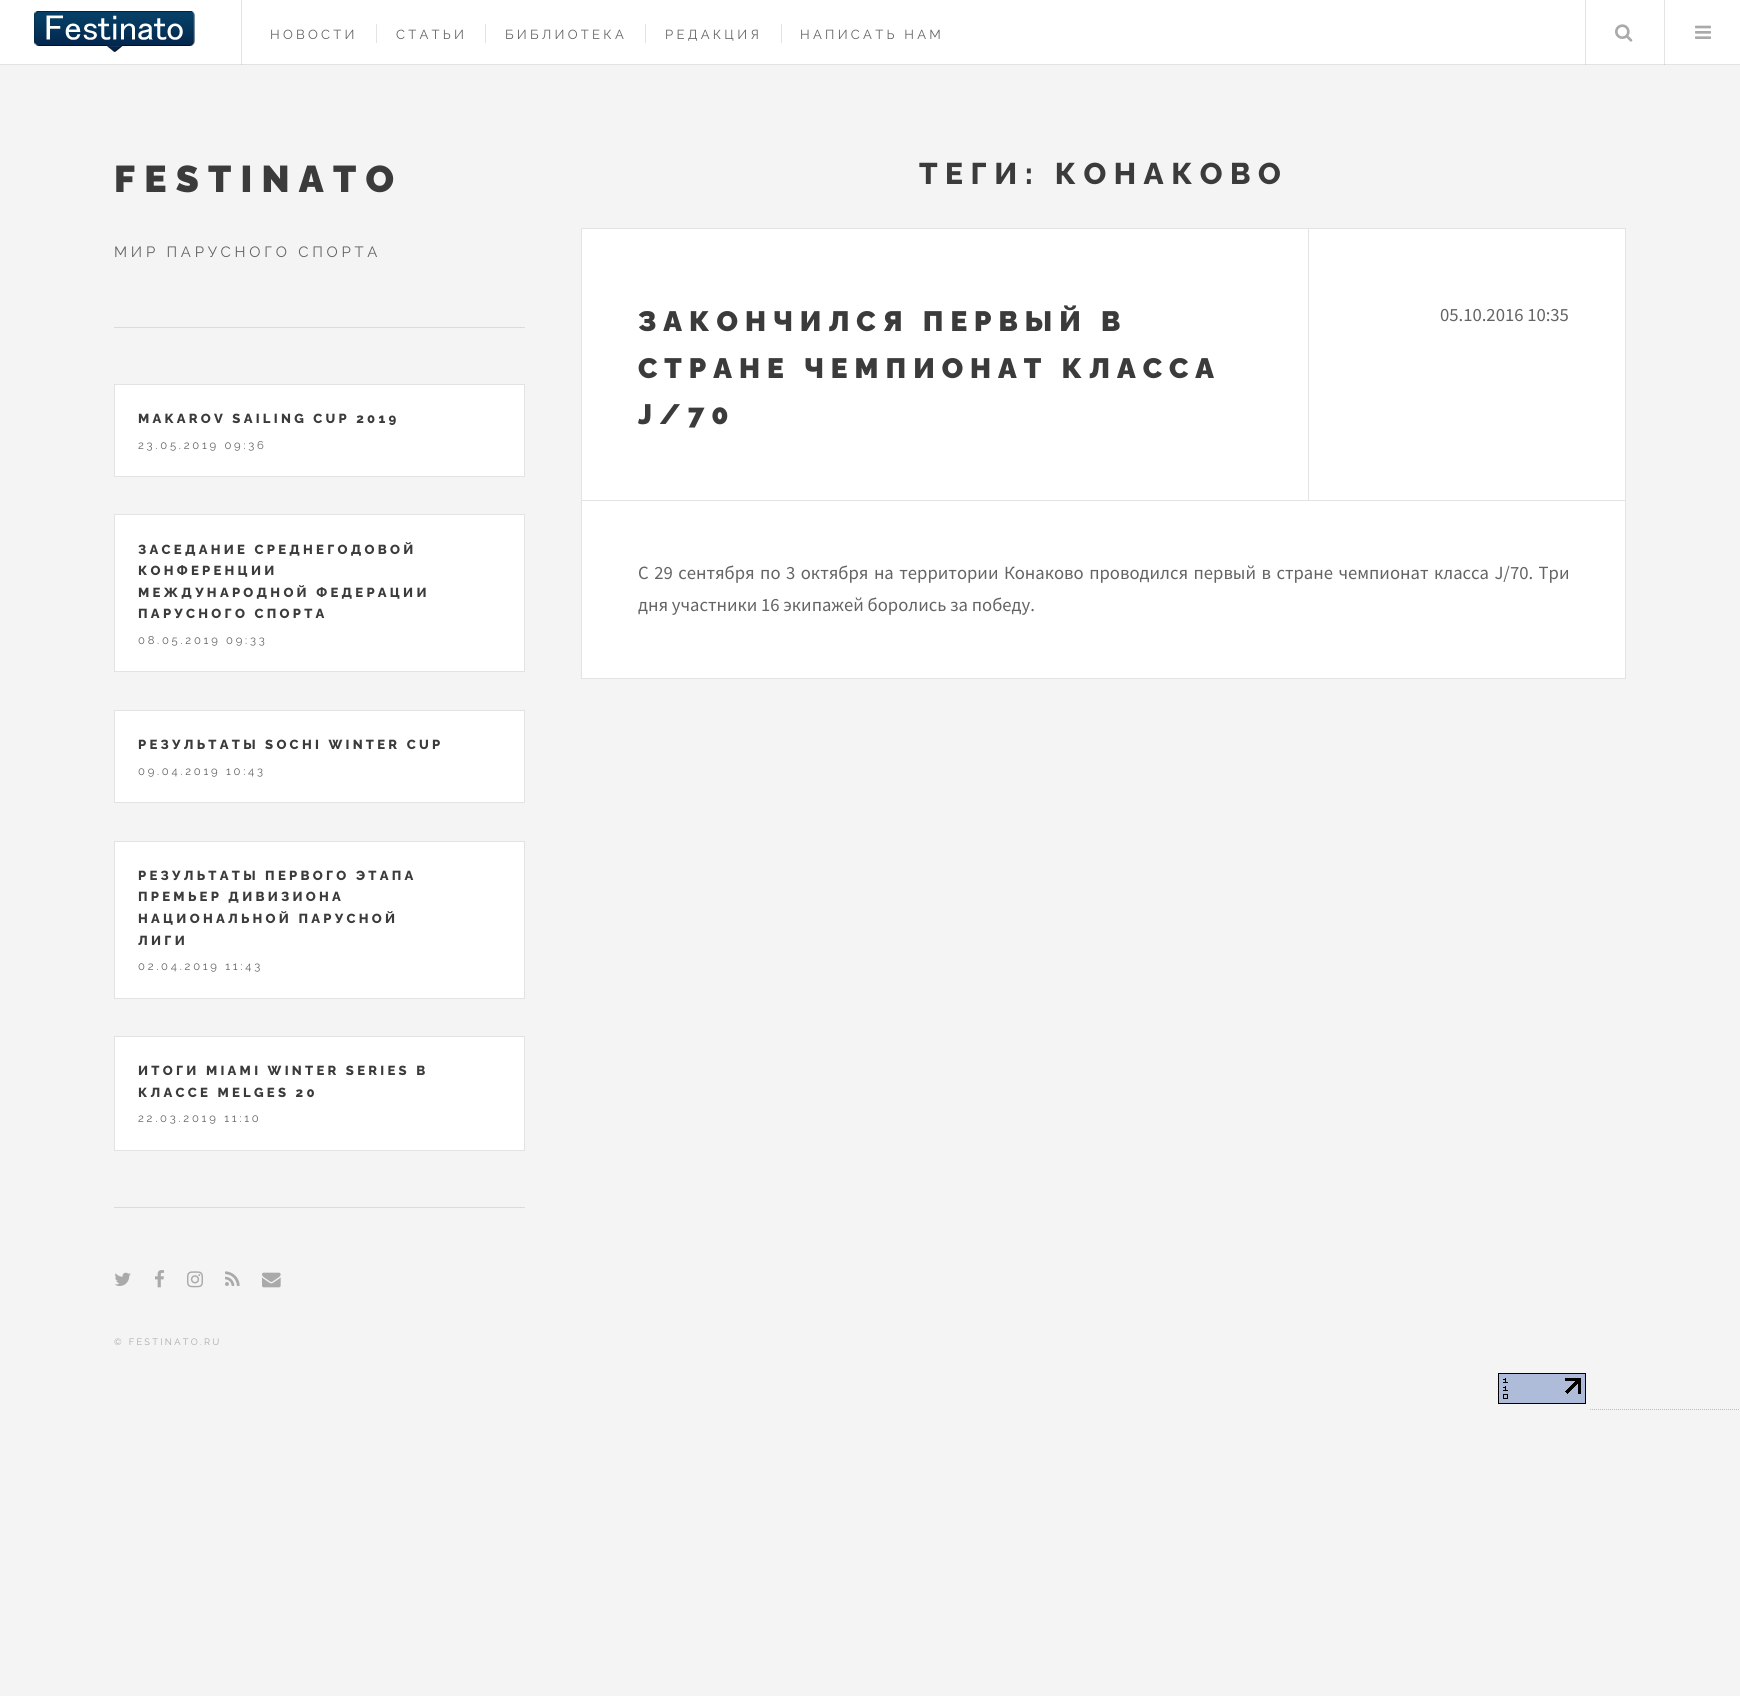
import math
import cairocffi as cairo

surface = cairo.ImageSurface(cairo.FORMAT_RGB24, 1740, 1696)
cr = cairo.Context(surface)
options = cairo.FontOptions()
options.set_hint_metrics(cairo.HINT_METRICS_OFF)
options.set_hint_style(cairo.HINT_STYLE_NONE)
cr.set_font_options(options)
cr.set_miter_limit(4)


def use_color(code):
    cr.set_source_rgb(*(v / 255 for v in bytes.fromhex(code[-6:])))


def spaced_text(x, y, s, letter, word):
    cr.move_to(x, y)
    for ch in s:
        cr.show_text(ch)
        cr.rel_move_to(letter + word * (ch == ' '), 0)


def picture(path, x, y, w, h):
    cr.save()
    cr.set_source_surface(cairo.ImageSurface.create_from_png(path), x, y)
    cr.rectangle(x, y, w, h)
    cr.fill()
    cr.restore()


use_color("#f4f4f4")
cr.paint()
use_color("#ffffff")
cr.rectangle(0, 0, 1740, 64)
cr.fill()
use_color("#e3e3e3")
cr.rectangle(241, 0, 1, 65)
cr.fill()
cr.rectangle(1664, 0, 1, 65)
cr.fill()
cr.rectangle(1585, 0, 1, 65)
cr.fill()
cr.rectangle(0, 64, 1740, 1)
cr.fill()
use_color("#cfcfcf")
cr.rectangle(241, 64, 1, 1)
cr.fill()
cr.rectangle(1664, 64, 1, 1)
cr.fill()
cr.rectangle(1585, 64, 1, 1)
cr.fill()
picture("img1.png", 34, 11, 161, 41)
cr.select_font_face("Raleway")
cr.set_font_size(13.1)
use_color("#646464")
spaced_text(270, 39, "НОВОСТИ", 3.25, 0)
use_color("#e3e3e3")
cr.rectangle(376, 24, 1, 19)
cr.fill()
use_color("#646464")
spaced_text(396, 39, "СТАТЬИ", 3.25, 0)
use_color("#e3e3e3")
cr.rectangle(485, 24, 1, 19)
cr.fill()
use_color("#646464")
spaced_text(505, 39, "БИБЛИОТЕКА", 3.25, 0)
use_color("#e3e3e3")
cr.rectangle(645, 24, 1, 19)
cr.fill()
use_color("#646464")
spaced_text(665, 39, "РЕДАКЦИЯ", 3.25, 0)
use_color("#e3e3e3")
cr.rectangle(781, 24, 1, 19)
cr.fill()
use_color("#646464")
spaced_text(800, 39, "НАПИСАТЬ НАМ", 3.25, 0)
picture("img2.png", 1615, 24, 18, 18)
picture("img3.png", 1695, 25, 16, 14)
cr.select_font_face("Raleway Black")
cr.set_font_size(37.25)
use_color("#3c3b3b")
spaced_text(114, 192, "FESTINATO", 9.25, 0)
cr.select_font_face("Raleway")
cr.set_font_size(14.9)
use_color("#646464")
spaced_text(114, 257, "МИР ПАРУСНОГО СПОРТА", 3.75, 0)
use_color("#dbdbdb")
cr.rectangle(114, 327, 411, 1)
cr.fill()
use_color("#ffffff")
cr.rectangle(114.5, 384.5, 410, 92)
cr.fill_preserve()
use_color("#e3e3e3")
cr.set_line_width(1)
cr.stroke()
cr.select_font_face("Raleway ExtraBold")
cr.set_font_size(13.1)
use_color("#3c3b3b")
spaced_text(138, 423, "MAKAROV SAILING CUP 2019", 3.25, 0)
cr.select_font_face("Raleway")
cr.set_font_size(11.25)
use_color("#646464")
spaced_text(138, 449, "23.05.2019 09:36", 2.75, 0)
use_color("#ffffff")
cr.rectangle(114.5, 514.5, 410, 157)
cr.fill_preserve()
use_color("#e3e3e3")
cr.stroke()
cr.select_font_face("Raleway ExtraBold")
cr.set_font_size(13.1)
use_color("#3c3b3b")
spaced_text(138, 554, "ЗАСЕДАНИЕ СРЕДНЕГОДОВОЙ", 3.25, 0)
spaced_text(138, 575, "КОНФЕРЕНЦИИ", 3.25, 0)
spaced_text(138, 597, "МЕЖДУНАРОДНОЙ ФЕДЕРАЦИИ", 3.25, 0)
spaced_text(138, 618, "ПАРУСНОГО СПОРТА", 3.25, 0)
cr.select_font_face("Raleway")
cr.set_font_size(11.25)
use_color("#646464")
spaced_text(138, 644, "08.05.2019 09:33", 2.75, 0)
use_color("#ffffff")
cr.rectangle(114.5, 710.5, 410, 92)
cr.fill_preserve()
use_color("#e3e3e3")
cr.stroke()
cr.select_font_face("Raleway ExtraBold")
cr.set_font_size(13.1)
use_color("#3c3b3b")
spaced_text(138, 749, "РЕЗУЛЬТАТЫ SOCHI WINTER CUP", 3.25, 0)
cr.select_font_face("Raleway")
cr.set_font_size(11.25)
use_color("#646464")
spaced_text(138, 775, "09.04.2019 10:43", 2.75, 0)
use_color("#ffffff")
cr.rectangle(114.5, 841.5, 410, 157)
cr.fill_preserve()
use_color("#e3e3e3")
cr.stroke()
cr.select_font_face("Raleway ExtraBold")
cr.set_font_size(13.1)
use_color("#3c3b3b")
spaced_text(138, 880, "РЕЗУЛЬТАТЫ ПЕРВОГО ЭТАПА", 3.25, 0)
spaced_text(138, 901, "ПРЕМЬЕР ДИВИЗИОНА", 3.25, 0)
spaced_text(138, 923, "НАЦИОНАЛЬНОЙ ПАРУСНОЙ", 3.25, 0)
spaced_text(138, 945, "ЛИГИ", 3.25, 0)
cr.select_font_face("Raleway")
cr.set_font_size(11.25)
use_color("#646464")
spaced_text(138, 970, "02.04.2019 11:43", 2.75, 0)
use_color("#ffffff")
cr.rectangle(114.5, 1036.5, 410, 114)
cr.fill_preserve()
use_color("#e3e3e3")
cr.stroke()
cr.select_font_face("Raleway ExtraBold")
cr.set_font_size(13.1)
use_color("#3c3b3b")
spaced_text(138, 1075, "ИТОГИ MIAMI WINTER SERIES В", 3.25, 0)
spaced_text(138, 1097, "КЛАССЕ MELGES 20", 3.25, 0)
cr.select_font_face("Raleway")
cr.set_font_size(11.25)
use_color("#646464")
spaced_text(138, 1122, "22.03.2019 11:10", 2.75, 0)
use_color("#dbdbdb")
cr.rectangle(114, 1207, 411, 1)
cr.fill()
picture("img4.png", 114, 1272, 17, 14)
picture("img5.png", 155, 1270, 9, 18)
picture("img6.png", 187, 1271, 16, 17)
picture("img7.png", 225, 1271, 15, 15)
picture("img8.png", 262, 1272, 19, 16)
cr.set_font_size(9.25)
use_color("#aaaaaa")
spaced_text(114, 1345, "© FESTINATO.RU", 2.3, 0)
cr.select_font_face("Raleway ExtraBold")
cr.set_font_size(29.9)
use_color("#3c3b3b")
spaced_text(919, 184, "ТЕГИ: КОНАКОВО", 7.5, 0)
use_color("#ffffff")
cr.rectangle(581.5, 228.5, 1044, 450)
cr.fill_preserve()
use_color("#e3e3e3")
cr.stroke()
cr.rectangle(582, 500, 1043, 1)
cr.fill()
cr.select_font_face("Raleway Black")
cr.set_font_size(28)
use_color("#3c3b3b")
spaced_text(638, 331, "ЗАКОНЧИЛСЯ ПЕРВЫЙ В", 7, 0)
spaced_text(638, 378, "СТРАНЕ ЧЕМПИОНАТ КЛАССА", 7, 0)
spaced_text(638, 424, "J/70", 7, 0)
use_color("#e3e3e3")
cr.rectangle(1308, 229, 1, 271)
cr.fill()
cr.select_font_face("Source Sans Pro")
cr.set_font_size(18.65)
use_color("#646464")
cr.move_to(1440, 321)
cr.show_text("05.10.2016 10:35")
spaced_text(638, 579, "С 29 сентября по 3 октября на территории Конаково проводился первый в стране чемпионат класса J/70. Три", 0, 1.75)
cr.move_to(638, 611)
cr.show_text("дня участники 16 экипажей боролись за победу.")
picture("img9.png", 1498, 1373, 88, 31)
cr.new_path()
cr.move_to(1590, 1409.5)
cr.line_to(1740, 1409.5)
use_color("#bdbdbd")
cr.set_dash([1, 1])
cr.stroke()
surface.write_to_png("result.png")
